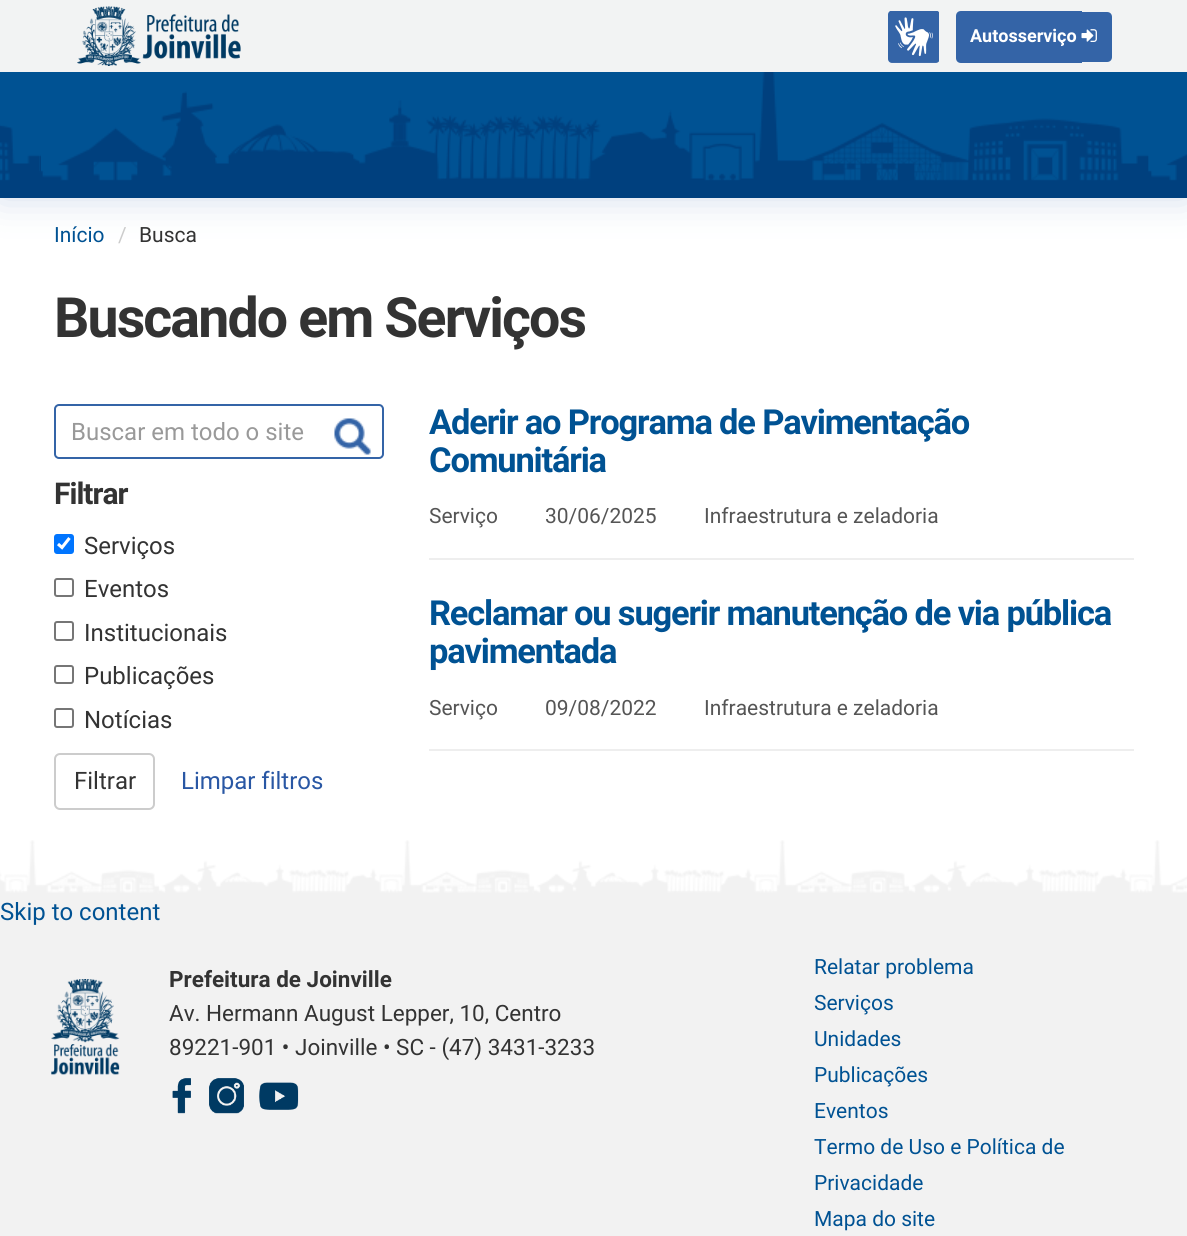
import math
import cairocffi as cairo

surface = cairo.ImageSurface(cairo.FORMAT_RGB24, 1187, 1236)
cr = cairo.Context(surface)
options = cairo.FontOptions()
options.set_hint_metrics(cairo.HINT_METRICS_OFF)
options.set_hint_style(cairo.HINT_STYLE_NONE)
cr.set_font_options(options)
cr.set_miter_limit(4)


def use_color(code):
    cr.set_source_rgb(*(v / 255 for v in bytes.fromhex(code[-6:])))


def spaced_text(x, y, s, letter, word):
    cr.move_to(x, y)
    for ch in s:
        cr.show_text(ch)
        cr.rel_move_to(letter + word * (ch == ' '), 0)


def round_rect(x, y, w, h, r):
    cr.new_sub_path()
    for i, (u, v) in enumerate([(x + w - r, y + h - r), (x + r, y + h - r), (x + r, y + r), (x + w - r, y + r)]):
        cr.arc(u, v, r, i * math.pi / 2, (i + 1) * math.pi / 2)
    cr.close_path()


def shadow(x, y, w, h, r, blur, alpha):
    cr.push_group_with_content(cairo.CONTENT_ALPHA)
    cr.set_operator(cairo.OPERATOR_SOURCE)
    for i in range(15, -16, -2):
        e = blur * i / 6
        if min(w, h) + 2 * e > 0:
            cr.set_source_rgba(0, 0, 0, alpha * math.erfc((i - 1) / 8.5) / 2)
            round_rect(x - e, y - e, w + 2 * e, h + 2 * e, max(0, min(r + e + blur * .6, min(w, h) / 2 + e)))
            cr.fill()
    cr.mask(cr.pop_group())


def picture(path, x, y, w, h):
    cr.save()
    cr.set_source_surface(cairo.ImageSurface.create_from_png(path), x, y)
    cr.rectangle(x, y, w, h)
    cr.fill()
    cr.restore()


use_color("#ffffff")
cr.paint()
use_color("#3464a7")
shadow(0, 63, 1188, 135, 0, 19, 0.23)
use_color("#005293")
cr.rectangle(0, 72, 1187, 109)
cr.fill()
picture("img1.png", 0, 72, 1187, 126)
use_color("#f2f3f3")
cr.rectangle(0, 0, 1187, 72)
cr.fill()
picture("img2.png", 77, 6, 164, 60)
picture("img3.png", 888, 11, 51, 52)
use_color("#3464a7")
cr.new_path()
cr.move_to(961, 11)
cr.line_to(1082, 11)
cr.line_to(1082, 63)
cr.line_to(961, 63)
cr.curve_to(958, 63, 956, 61, 956, 58)
cr.line_to(956, 16)
cr.curve_to(956, 13, 958, 11, 961, 11)
cr.close_path()
cr.fill()
cr.new_path()
cr.move_to(1082, 12)
cr.line_to(1107, 12)
cr.curve_to(1110, 12, 1112, 14, 1112, 17)
cr.line_to(1112, 57)
cr.curve_to(1112, 60, 1110, 62, 1107, 62)
cr.line_to(1082, 62)
cr.close_path()
cr.fill()
cr.select_font_face("Roboto", cairo.FONT_SLANT_NORMAL, cairo.FONT_WEIGHT_BOLD)
cr.set_font_size(18)
use_color("#ffffff")
cr.move_to(970, 42)
cr.show_text("Autosserviço")
picture("img4.png", 1081, 29, 16, 13)
cr.select_font_face("Roboto")
cr.set_font_size(21)
use_color("#005293")
cr.move_to(54, 242)
cr.show_text("Início")
use_color("#cccccc")
cr.move_to(118, 242)
cr.show_text("/")
use_color("#333333")
cr.move_to(139, 242)
cr.show_text("Busca")
cr.select_font_face("Roboto", cairo.FONT_SLANT_NORMAL, cairo.FONT_WEIGHT_BOLD)
cr.set_font_size(55.5)
spaced_text(54, 337, "Buscando em Serviços", -1.9, 0)
picture("img5.png", 334, 418, 37, 37)
round_rect(55, 405, 328, 53, 4)
use_color("#3464a7")
cr.stroke()
cr.select_font_face("Roboto")
cr.set_font_size(24)
use_color("#999999")
cr.move_to(71, 440)
cr.show_text("Buscar em todo o site")
cr.select_font_face("Roboto", cairo.FONT_SLANT_NORMAL, cairo.FONT_WEIGHT_BOLD)
cr.set_font_size(30)
use_color("#333333")
spaced_text(54, 504, "Filtrar", -1, 0)
use_color("#0075ff")
round_rect(54, 534, 20, 20, 3)
cr.fill()
cr.new_path()
cr.move_to(58, 544)
cr.line_to(62, 547.5)
cr.line_to(69.5, 538)
use_color("#ffffff")
cr.set_line_width(3.1)
cr.stroke()
cr.select_font_face("Roboto")
cr.set_font_size(24)
use_color("#333333")
cr.move_to(84, 554)
cr.show_text("Serviços")
round_rect(55, 579, 18, 17, 2)
use_color("#767676")
cr.set_line_width(2)
cr.stroke()
use_color("#333333")
cr.move_to(84, 597)
cr.show_text("Eventos")
round_rect(55, 622, 18, 18, 2)
use_color("#767676")
cr.stroke()
use_color("#333333")
cr.move_to(84, 641)
cr.show_text("Institucionais")
round_rect(55, 666, 18, 17, 2)
use_color("#767676")
cr.stroke()
use_color("#333333")
cr.move_to(84, 684)
cr.show_text("Publicações")
round_rect(55, 709, 18, 18, 2)
use_color("#767676")
cr.stroke()
use_color("#333333")
cr.move_to(84, 728)
cr.show_text("Notícias")
round_rect(55, 754, 99, 55, 5)
use_color("#cccccc")
cr.stroke()
use_color("#333333")
cr.move_to(74, 789)
cr.show_text("Filtrar")
use_color("#2957a4")
cr.move_to(181, 789)
cr.show_text("Limpar filtros")
cr.select_font_face("Roboto", cairo.FONT_SLANT_NORMAL, cairo.FONT_WEIGHT_BOLD)
cr.set_font_size(34.5)
use_color("#005293")
spaced_text(429, 434, "Aderir ao Programa de Pavimentação", -1.2, 0)
spaced_text(429, 472, "Comunitária", -1.2, 0)
use_color("#eeeeee")
cr.rectangle(429, 558, 705, 2)
cr.fill()
cr.select_font_face("Roboto")
cr.set_font_size(21)
use_color("#555555")
cr.move_to(429, 523)
cr.show_text("Serviço")
cr.move_to(545, 523)
cr.show_text("30/06/2025")
cr.move_to(704, 523)
cr.show_text("Infraestrutura e zeladoria")
cr.select_font_face("Roboto", cairo.FONT_SLANT_NORMAL, cairo.FONT_WEIGHT_BOLD)
cr.set_font_size(34.5)
use_color("#005293")
spaced_text(429, 625, "Reclamar ou sugerir manutenção de via pública", -1.2, 0)
spaced_text(429, 663, "pavimentada", -1.2, 0)
use_color("#eeeeee")
cr.rectangle(429, 749, 705, 2)
cr.fill()
cr.select_font_face("Roboto")
cr.set_font_size(21)
use_color("#555555")
cr.move_to(429, 715)
cr.show_text("Serviço")
cr.move_to(545, 715)
cr.show_text("09/08/2022")
cr.move_to(704, 715)
cr.show_text("Infraestrutura e zeladoria")
use_color("#f2f2f2")
cr.rectangle(0, 894, 1187, 342)
cr.fill()
cr.set_font_size(24)
use_color("#005293")
cr.move_to(0, 920)
cr.show_text("Skip to content")
picture("img6.png", 0, 840, 1187, 54)
picture("img7.png", 51, 979, 69, 96)
cr.select_font_face("Roboto", cairo.FONT_SLANT_NORMAL, cairo.FONT_WEIGHT_BOLD)
cr.set_font_size(22.5)
use_color("#333333")
cr.move_to(169, 987)
cr.show_text("Prefeitura de Joinville")
cr.select_font_face("Roboto")
cr.move_to(169, 1021)
cr.show_text("Av. Hermann August Lepper, 10, Centro")
cr.move_to(169, 1055)
cr.show_text("89221-901 • Joinville • SC - (47) 3431-3233")
picture("img8.png", 172, 1078, 19, 36)
picture("img9.png", 209, 1078, 35, 36)
picture("img10.png", 259, 1082, 40, 28)
cr.set_font_size(21)
use_color("#005293")
cr.move_to(814, 974)
cr.show_text("Relatar problema")
cr.move_to(814, 1010)
cr.show_text("Serviços")
cr.move_to(814, 1046)
cr.show_text("Unidades")
cr.move_to(814, 1082)
cr.show_text("Publicações")
cr.move_to(814, 1118)
cr.show_text("Eventos")
cr.move_to(814, 1154)
cr.show_text("Termo de Uso e Política de")
cr.move_to(814, 1190)
cr.show_text("Privacidade")
cr.move_to(814, 1226)
cr.show_text("Mapa do site")
surface.write_to_png("result.png")
